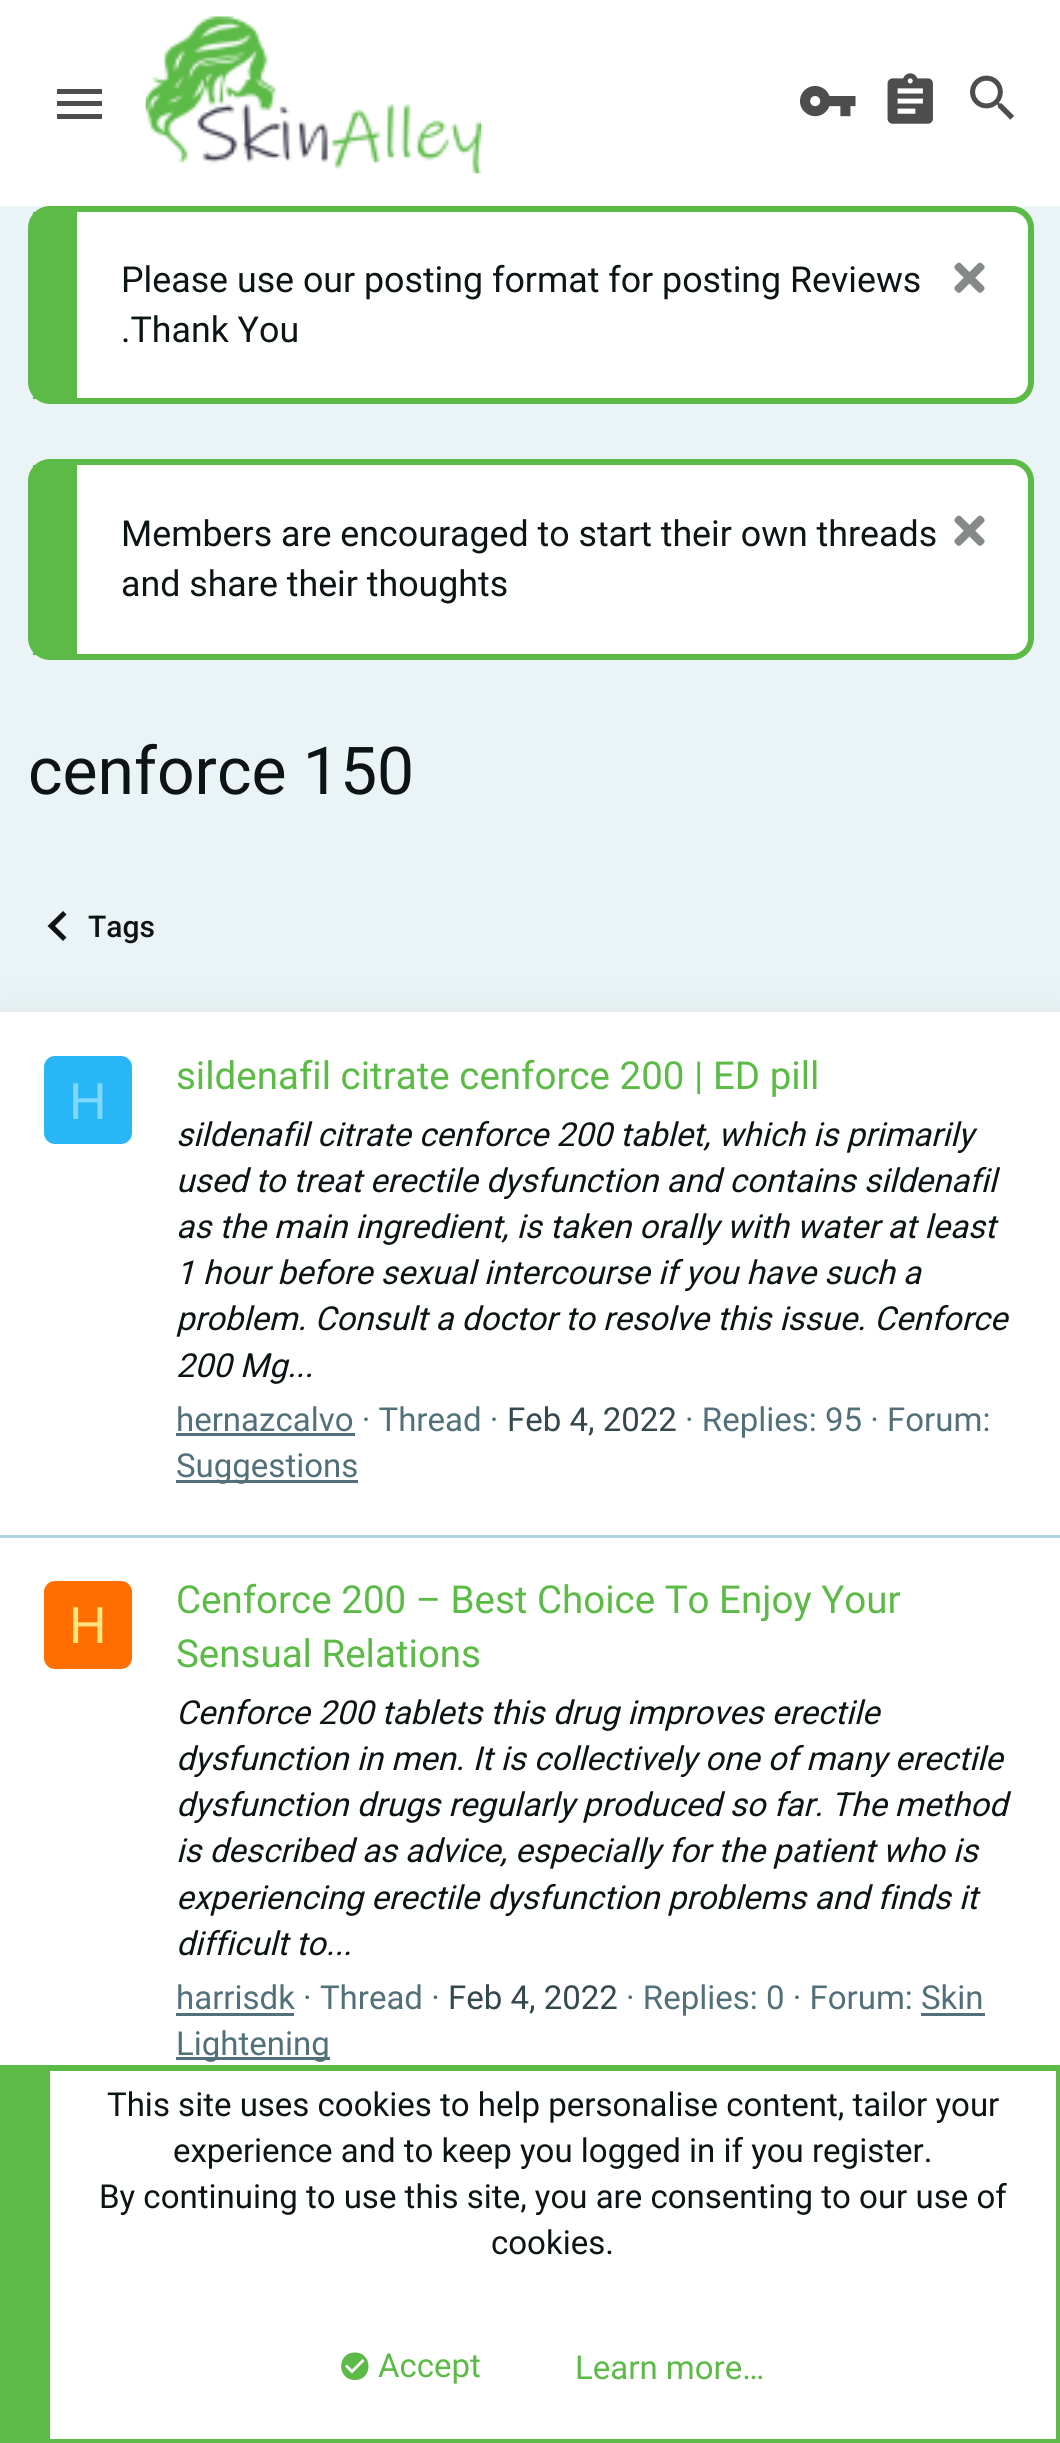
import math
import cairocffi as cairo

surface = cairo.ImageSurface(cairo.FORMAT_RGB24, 1060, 2443)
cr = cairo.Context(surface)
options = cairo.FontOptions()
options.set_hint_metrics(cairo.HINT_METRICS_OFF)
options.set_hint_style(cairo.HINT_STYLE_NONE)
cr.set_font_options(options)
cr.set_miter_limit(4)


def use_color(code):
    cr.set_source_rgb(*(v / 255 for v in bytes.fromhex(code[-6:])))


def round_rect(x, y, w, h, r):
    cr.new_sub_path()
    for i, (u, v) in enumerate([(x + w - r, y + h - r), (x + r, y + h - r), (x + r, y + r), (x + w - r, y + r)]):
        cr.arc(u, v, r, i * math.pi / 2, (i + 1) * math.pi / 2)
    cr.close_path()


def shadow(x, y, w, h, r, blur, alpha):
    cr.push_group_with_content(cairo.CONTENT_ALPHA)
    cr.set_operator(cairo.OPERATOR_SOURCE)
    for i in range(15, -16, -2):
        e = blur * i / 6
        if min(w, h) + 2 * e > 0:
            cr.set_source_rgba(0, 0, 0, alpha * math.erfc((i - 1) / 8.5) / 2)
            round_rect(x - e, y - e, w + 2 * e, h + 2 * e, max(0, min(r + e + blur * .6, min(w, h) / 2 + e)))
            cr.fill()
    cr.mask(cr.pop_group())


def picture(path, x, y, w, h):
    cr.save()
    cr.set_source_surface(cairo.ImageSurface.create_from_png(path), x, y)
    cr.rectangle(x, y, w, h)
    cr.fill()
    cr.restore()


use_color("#eaf3f5")
cr.paint()
use_color("#ffffff")
cr.rectangle(0, 0, 1060, 206)
cr.fill()
use_color("#4d4d4d")
cr.new_path()
cr.move_to(57, 89)
cr.line_to(102, 89)
cr.line_to(102, 94)
cr.line_to(57, 94)
cr.close_path()
cr.move_to(57, 101)
cr.line_to(102, 101)
cr.line_to(102, 106)
cr.line_to(57, 106)
cr.close_path()
cr.move_to(57, 114)
cr.line_to(102, 114)
cr.line_to(102, 119)
cr.line_to(57, 119)
cr.close_path()
cr.fill()
picture("img1.png", 145, 16, 337, 158)
picture("img2.png", 800, 85, 56, 32)
picture("img3.png", 887, 73, 46, 51)
picture("img4.png", 970, 75, 44, 45)
use_color("#ffffff")
round_rect(31, 209, 1000, 192, 19)
cr.fill_preserve()
use_color("#5cba47")
cr.set_line_width(6)
cr.stroke()
cr.rectangle(33, 212, 44, 187)
cr.fill()
cr.select_font_face("Roboto")
cr.set_font_size(35.75)
use_color("#0d1416")
cr.move_to(121, 292)
cr.show_text("Please use our posting format for posting Reviews")
picture("img5.png", 954, 262, 31, 31)
cr.move_to(121, 342)
cr.show_text(".Thank You")
use_color("#ffffff")
round_rect(31, 462, 1000, 195, 19)
cr.fill_preserve()
use_color("#5cba47")
cr.stroke()
cr.rectangle(33, 465, 44, 190)
cr.fill()
use_color("#0d1416")
cr.move_to(121, 546)
cr.show_text("Members are encouraged to start their own threads")
picture("img5.png", 954, 515, 31, 31)
cr.move_to(121, 596)
cr.show_text("and share their thoughts")
cr.set_font_size(66)
cr.move_to(28, 794)
cr.show_text("cenforce 150")
cr.new_path()
cr.move_to(66.5, 937.5)
cr.line_to(55, 926)
cr.line_to(66.5, 914.5)
cr.line_to(63, 911)
cr.line_to(47.5, 926)
cr.line_to(63, 941)
cr.close_path()
cr.fill()
cr.select_font_face("Roboto Medium")
cr.set_font_size(30)
cr.move_to(88, 937)
cr.show_text("Tags")
use_color("#637a7f")
shadow(0, 1023, 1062, 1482, 0, 20.5, 0.2)
use_color("#ffffff")
cr.rectangle(0, 1012, 1060, 1053)
cr.fill()
use_color("#29b6f6")
round_rect(44, 1056, 88, 88, 11)
cr.fill()
cr.select_font_face("Liberation Sans")
cr.set_font_size(52)
use_color("#80d8ff")
cr.move_to(69, 1119)
cr.show_text("H")
cr.select_font_face("Roboto")
cr.set_font_size(38.5)
use_color("#5cba47")
cr.move_to(176, 1089)
cr.show_text("sildenafil citrate cenforce 200 | ED pill")
cr.select_font_face("Roboto", cairo.FONT_SLANT_ITALIC)
cr.set_font_size(33)
use_color("#0d1416")
cr.move_to(176, 1146)
cr.show_text("sildenafil citrate cenforce 200 tablet, which is primarily")
cr.move_to(176, 1192)
cr.show_text("used to treat erectile dysfunction and contains sildenafil")
cr.move_to(176, 1238)
cr.show_text("as the main ingredient, is taken orally with water at least")
cr.move_to(176, 1284)
cr.show_text("1 hour before sexual intercourse if you have such a")
cr.move_to(176, 1330)
cr.show_text("problem. Consult a doctor to resolve this issue. Cenforce")
cr.move_to(176, 1377)
cr.show_text("200 Mg...")
cr.select_font_face("Roboto")
use_color("#527079")
cr.move_to(176, 1431)
cr.show_text("hernazcalvo · Thread ·")
cr.rectangle(176, 1433, 179, 3)
cr.fill()
use_color("#34484e")
cr.move_to(507, 1431)
cr.show_text("Feb 4, 2022")
use_color("#527079")
cr.move_to(685, 1431)
cr.show_text("· Replies: 95 · Forum:")
cr.rectangle(176, 1480, 182, 3)
cr.fill()
cr.move_to(176, 1477)
cr.show_text("Suggestions")
use_color("#acd5e0")
cr.rectangle(0, 1535, 1060, 3)
cr.fill()
use_color("#ff6f00")
round_rect(44, 1581, 88, 88, 11)
cr.fill()
cr.select_font_face("Liberation Sans")
cr.set_font_size(52)
use_color("#ffe57f")
cr.move_to(69, 1643)
cr.show_text("H")
cr.select_font_face("Roboto")
cr.set_font_size(38.5)
use_color("#5cba47")
cr.move_to(176, 1613)
cr.show_text("Cenforce 200 – Best Choice To Enjoy Your")
cr.move_to(176, 1667)
cr.show_text("Sensual Relations")
cr.select_font_face("Roboto", cairo.FONT_SLANT_ITALIC)
cr.set_font_size(33)
use_color("#0d1416")
cr.move_to(176, 1724)
cr.show_text("Cenforce 200 tablets this drug improves erectile")
cr.move_to(176, 1770)
cr.show_text("dysfunction in men. It is collectively one of many erectile")
cr.move_to(176, 1816)
cr.show_text("dysfunction drugs regularly produced so far. The method")
cr.move_to(176, 1862)
cr.show_text("is described as advice, especially for the patient who is")
cr.move_to(176, 1909)
cr.show_text("experiencing erectile dysfunction problems and finds it")
cr.move_to(176, 1955)
cr.show_text("difficult to...")
cr.select_font_face("Roboto")
use_color("#527079")
cr.move_to(176, 2009)
cr.show_text("harrisdk · Thread ·")
cr.rectangle(176, 2013, 118, 3)
cr.fill()
use_color("#34484e")
cr.move_to(448, 2009)
cr.show_text("Feb 4, 2022")
use_color("#527079")
cr.move_to(626, 2009)
cr.show_text("· Replies: 0 · Forum: Skin")
cr.rectangle(176, 2057, 154, 3)
cr.fill()
cr.move_to(176, 2055)
cr.show_text("Lightening")
cr.rectangle(921, 2013, 64, 3)
cr.fill()
use_color("#ffffff")
cr.rectangle(50, 2071, 1006, 368)
cr.fill()
cr.rectangle(3, 2068, 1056, 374)
use_color("#5cba47")
cr.stroke()
cr.rectangle(6, 2071, 44, 368)
cr.fill()
use_color("#0d1416")
cr.move_to(107, 2116)
cr.show_text("This site uses cookies to help personalise content, tailor your")
cr.move_to(173, 2162)
cr.show_text("experience and to keep you logged in if you register.")
cr.move_to(99, 2208)
cr.show_text("By continuing to use this site, you are consenting to our use of")
cr.move_to(491, 2254)
cr.show_text("cookies.")
use_color("#5cba47")
cr.new_path()
cr.move_to(355, 2352.5)
cr.curve_to(336.5, 2352.5, 336.5, 2380, 355, 2380)
cr.curve_to(373, 2380, 373, 2352.5, 355, 2352.5)
cr.close_path()
cr.move_to(352, 2373.5)
cr.line_to(345, 2366.5)
cr.line_to(347, 2364.5)
cr.line_to(352, 2369.5)
cr.line_to(362.5, 2359)
cr.line_to(364.5, 2361)
cr.close_path()
cr.fill()
cr.move_to(378, 2377)
cr.show_text("Accept")
cr.move_to(575, 2379)
cr.show_text("Learn more…")
surface.write_to_png("result.png")
